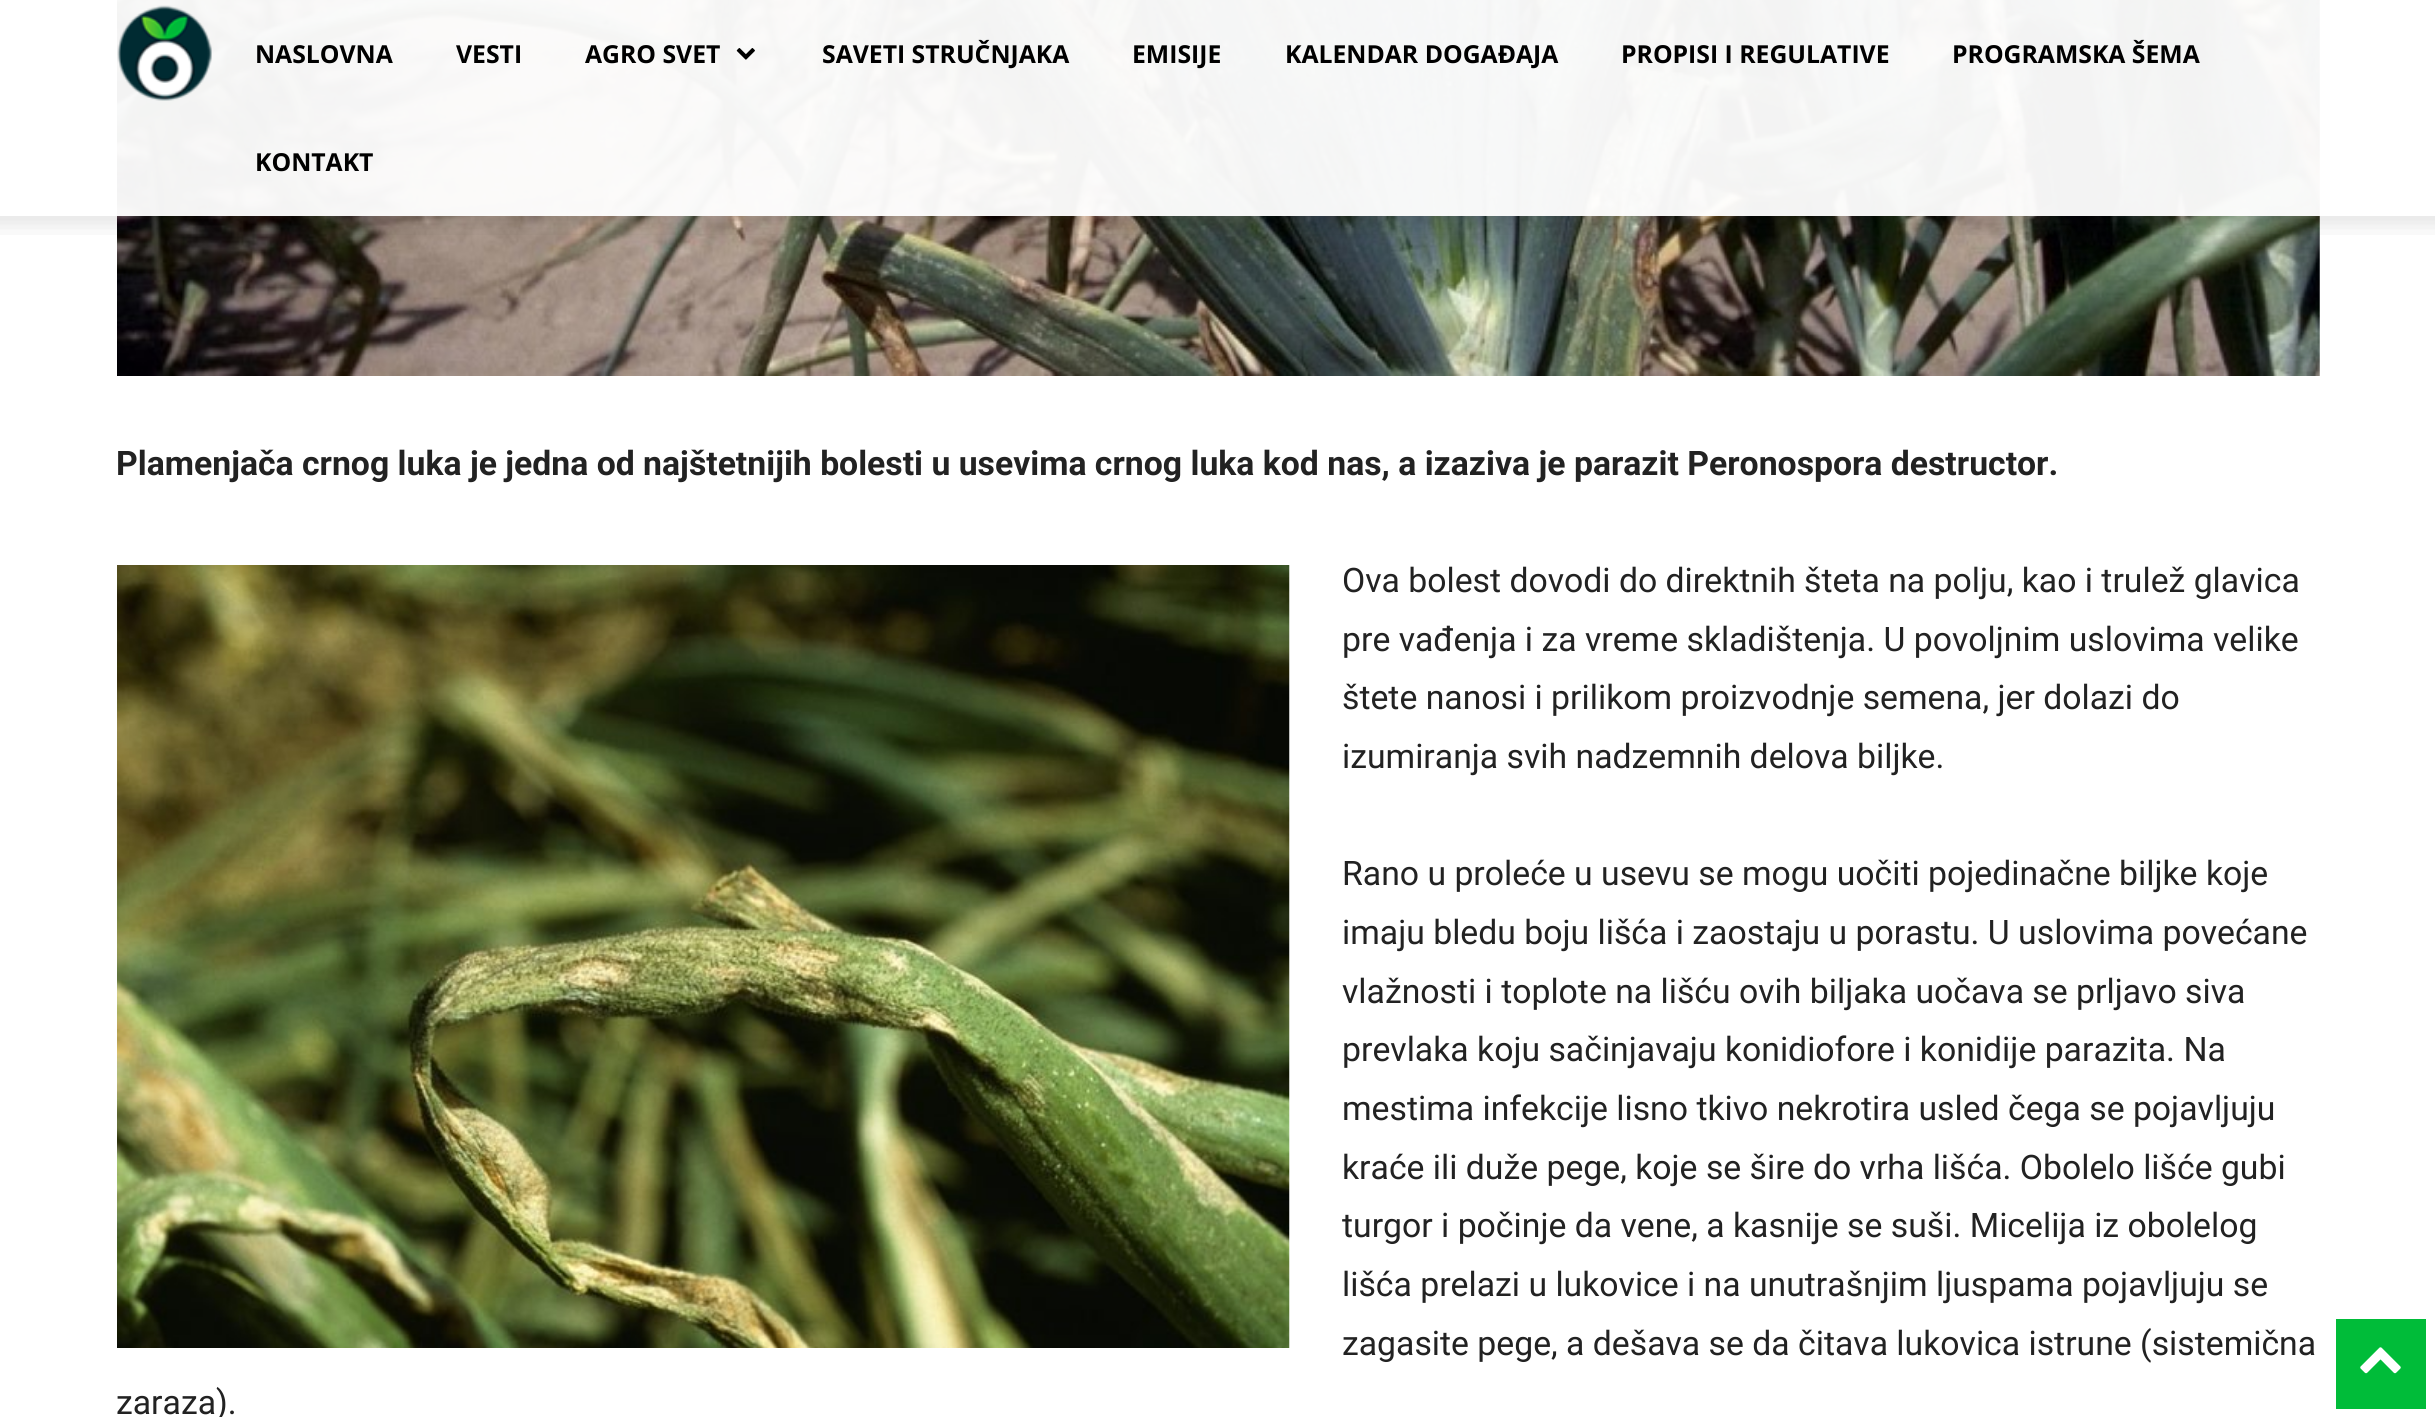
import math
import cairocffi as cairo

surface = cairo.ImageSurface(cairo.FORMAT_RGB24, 2435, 1417)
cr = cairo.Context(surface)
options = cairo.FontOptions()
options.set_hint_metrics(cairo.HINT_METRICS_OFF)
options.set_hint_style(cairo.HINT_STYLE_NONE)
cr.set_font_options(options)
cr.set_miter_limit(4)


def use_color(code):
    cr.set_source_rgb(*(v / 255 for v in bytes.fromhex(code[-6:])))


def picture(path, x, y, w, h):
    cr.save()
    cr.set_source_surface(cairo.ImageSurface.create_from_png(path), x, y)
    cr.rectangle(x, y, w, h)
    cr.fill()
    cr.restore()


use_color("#ffffff")
cr.paint()
picture("img4.png", 117, 0, 2203, 376)
cr.set_source_rgba(1, 1, 1, 0.95)
cr.rectangle(117, 0, 2203, 216)
cr.fill()
picture("img1.png", 117, 5, 95, 96)
cr.select_font_face("Open Sans", cairo.FONT_SLANT_NORMAL, cairo.FONT_WEIGHT_BOLD)
cr.set_font_size(24.75)
use_color("#000000")
cr.move_to(255, 63)
cr.show_text("NASLOVNA")
cr.move_to(456, 63)
cr.show_text("VESTI")
cr.move_to(585, 63)
cr.show_text("AGRO SVET")
picture("img2.png", 736, 48, 19, 12)
cr.move_to(822, 63)
cr.show_text("SAVETI STRUČNJAKA")
cr.move_to(1132, 63)
cr.show_text("EMISIJE")
cr.move_to(1285, 63)
cr.show_text("KALENDAR DOGAĐAJA")
cr.move_to(1621, 63)
cr.show_text("PROPISI I REGULATIVE")
cr.move_to(1952, 63)
cr.show_text("PROGRAMSKA ŠEMA")
cr.move_to(255, 171)
cr.show_text("KONTAKT")
picture("img3.png", 0, 216, 2435, 19)
cr.select_font_face("Roboto", cairo.FONT_SLANT_NORMAL, cairo.FONT_WEIGHT_BOLD)
cr.set_font_size(33.75)
use_color("#222222")
cr.move_to(116, 475)
cr.show_text("Plamenjača crnog luka je jedna od najštetnijih bolesti u usevima crnog luka kod nas, a izaziva je parazit Peronospora destructor.")
picture("img5.png", 117, 565, 1173, 783)
cr.select_font_face("Roboto")
cr.move_to(1342, 592)
cr.show_text("Ova bolest dovodi do direktnih šteta na polju, kao i trulež glavica")
cr.move_to(1342, 651)
cr.show_text("pre vađenja i za vreme skladištenja. U povoljnim uslovima velike")
cr.move_to(1342, 709)
cr.show_text("štete nanosi i prilikom proizvodnje semena, jer dolazi do")
cr.move_to(1342, 768)
cr.show_text("izumiranja svih nadzemnih delova biljke.")
cr.move_to(1342, 885)
cr.show_text("Rano u proleće u usevu se mogu uočiti pojedinačne biljke koje")
cr.move_to(1342, 944)
cr.show_text("imaju bledu boju lišća i zaostaju u porastu. U uslovima povećane")
cr.move_to(1342, 1003)
cr.show_text("vlažnosti i toplote na lišću ovih biljaka uočava se prljavo siva")
cr.move_to(1342, 1061)
cr.show_text("prevlaka koju sačinjavaju konidiofore i konidije parazita. Na")
cr.move_to(1342, 1120)
cr.show_text("mestima infekcije lisno tkivo nekrotira usled čega se pojavljuju")
cr.move_to(1342, 1179)
cr.show_text("kraće ili duže pege, koje se šire do vrha lišća. Obolelo lišće gubi")
cr.move_to(1342, 1237)
cr.show_text("turgor i počinje da vene, a kasnije se suši. Micelija iz obolelog")
cr.move_to(1342, 1296)
cr.show_text("lišća prelazi u lukovice i na unutrašnjim ljuspama pojavljuju se")
cr.move_to(1342, 1355)
cr.show_text("zagasite pege, a dešava se da čitava lukovica istrune (sistemična")
cr.move_to(116, 1414)
cr.show_text("zaraza).")
use_color("#00bc39")
cr.rectangle(2336, 1319, 90, 90)
cr.fill()
picture("img6.png", 2360, 1347, 41, 27)
surface.write_to_png("result.png")
